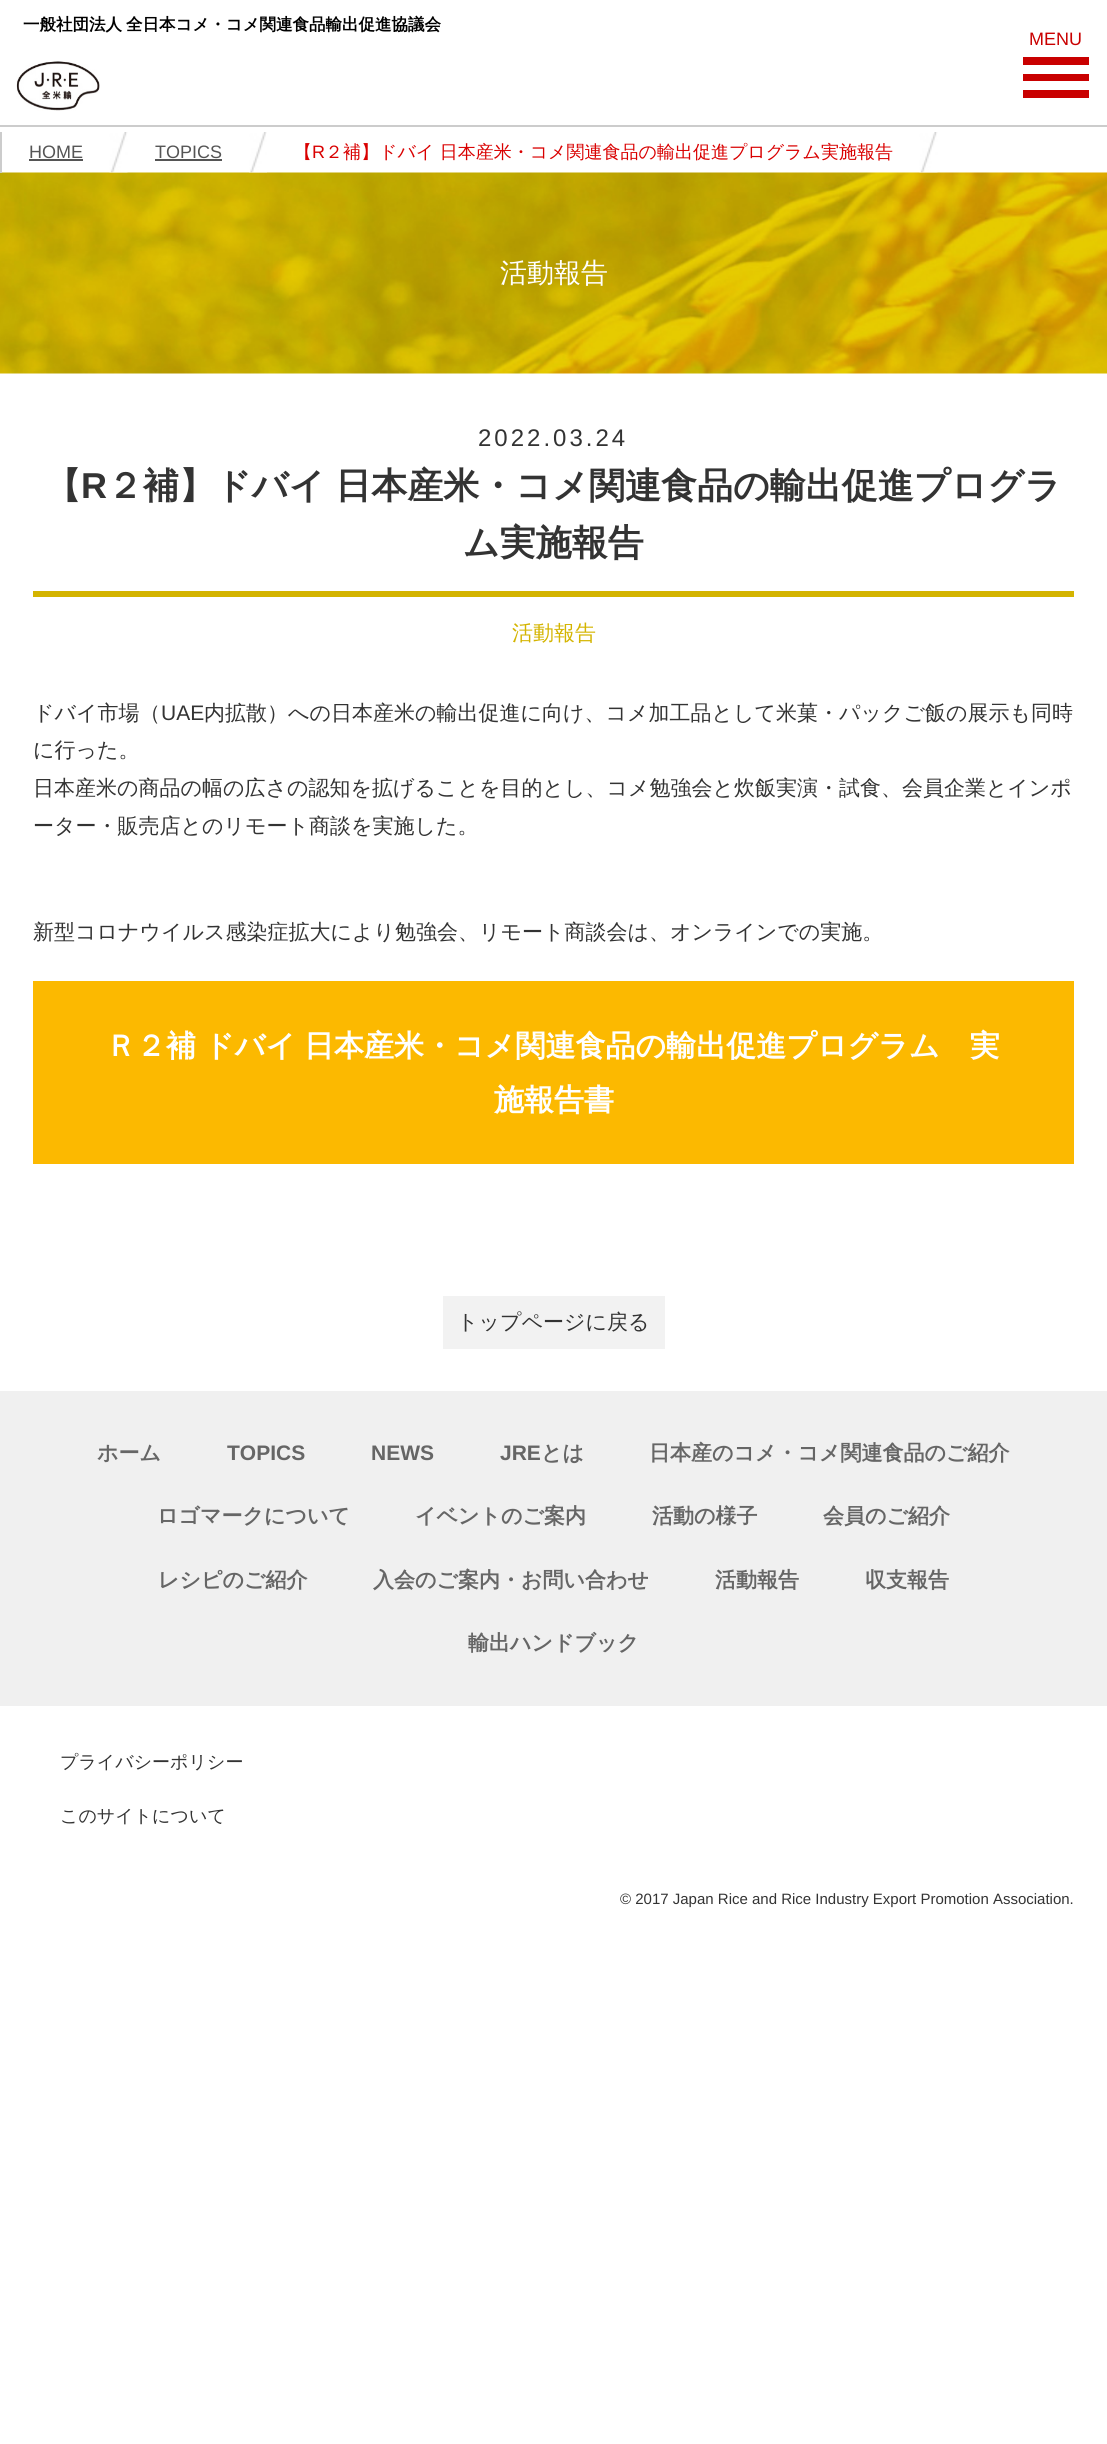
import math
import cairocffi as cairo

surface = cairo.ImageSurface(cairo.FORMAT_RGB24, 1107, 2444)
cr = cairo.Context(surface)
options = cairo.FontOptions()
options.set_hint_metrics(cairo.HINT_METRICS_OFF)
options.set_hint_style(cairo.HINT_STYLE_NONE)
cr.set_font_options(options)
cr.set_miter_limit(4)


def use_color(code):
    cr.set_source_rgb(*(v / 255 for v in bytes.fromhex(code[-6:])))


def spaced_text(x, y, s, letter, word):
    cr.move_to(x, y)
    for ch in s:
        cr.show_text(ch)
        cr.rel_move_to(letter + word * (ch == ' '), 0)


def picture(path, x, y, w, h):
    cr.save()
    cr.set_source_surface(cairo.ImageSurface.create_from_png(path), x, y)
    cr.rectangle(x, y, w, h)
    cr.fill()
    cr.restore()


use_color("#ffffff")
cr.paint()
use_color("#cccccc")
cr.rectangle(0, 125, 1107, 2)
cr.fill()
cr.select_font_face("WenQuanYi Zen Hei", cairo.FONT_SLANT_NORMAL, cairo.FONT_WEIGHT_BOLD)
cr.set_font_size(16.5)
use_color("#000000")
cr.move_to(23, 30)
cr.show_text("一般社団法人")
cr.move_to(126, 30)
cr.show_text("全日本コメ・コメ関連食品輸出促進協議会")
cr.select_font_face("Liberation Sans")
cr.set_font_size(18)
use_color("#c90000")
cr.move_to(1029, 45)
cr.show_text("MENU")
cr.rectangle(1023, 57, 66, 8)
cr.fill()
cr.rectangle(1023, 74, 66, 7)
cr.fill()
cr.rectangle(1023, 90, 66, 8)
cr.fill()
picture("img1.png", 16, 61, 84, 50)
picture("img5.png", 0, 172, 1107, 202)
use_color("#cccccc")
cr.rectangle(0, 132, 2, 41)
cr.fill()
picture("img2.png", 109, 132, 19, 41)
use_color("#555555")
cr.move_to(29, 158)
cr.show_text("HOME")
cr.rectangle(29, 159, 54, 2)
cr.fill()
picture("img3.png", 249, 132, 18, 41)
cr.move_to(155, 158)
cr.show_text("TOPICS")
cr.rectangle(155, 159, 67, 2)
cr.fill()
picture("img4.png", 919, 132, 19, 41)
cr.select_font_face("WenQuanYi Zen Hei Medium")
use_color("#d90000")
cr.move_to(294, 158)
cr.show_text("【")
cr.select_font_face("Liberation Sans")
cr.move_to(312, 158)
cr.show_text("R")
cr.select_font_face("WenQuanYi Zen Hei Medium")
cr.move_to(325, 158)
cr.show_text("２補】ドバイ 日本産米・コメ関連食品の輸出促進プログラム実施報告")
cr.set_font_size(27)
use_color("#ffffff")
cr.move_to(500, 282)
cr.show_text("活動報告")
cr.select_font_face("Liberation Sans")
cr.set_font_size(24)
use_color("#333333")
spaced_text(478, 446, "2022.03.24", 3, 0)
cr.select_font_face("WenQuanYi Zen Hei", cairo.FONT_SLANT_NORMAL, cairo.FONT_WEIGHT_BOLD)
cr.set_font_size(36)
cr.move_to(45, 498)
cr.show_text("【")
cr.select_font_face("Liberation Sans", cairo.FONT_SLANT_NORMAL, cairo.FONT_WEIGHT_BOLD)
cr.move_to(81, 498)
cr.show_text("R")
cr.select_font_face("WenQuanYi Zen Hei", cairo.FONT_SLANT_NORMAL, cairo.FONT_WEIGHT_BOLD)
spaced_text(107, 498, "２補】ドバイ 日本産米・コメ関連食品の輸出促進プログラ", 0, -1)
cr.move_to(463, 555)
cr.show_text("ム実施報告")
use_color("#d4b400")
cr.rectangle(33, 591, 1041, 6)
cr.fill()
cr.select_font_face("WenQuanYi Zen Hei Medium")
cr.set_font_size(21)
cr.move_to(512, 640)
cr.show_text("活動報告")
use_color("#333333")
cr.move_to(33, 720)
cr.show_text("ドバイ市場（")
cr.select_font_face("Liberation Sans")
cr.move_to(161, 720)
cr.show_text("UAE")
cr.select_font_face("WenQuanYi Zen Hei Medium")
cr.move_to(204, 720)
cr.show_text("内拡散）への日本産米の輸出促進に向け、コメ加工品として米菓・パックご飯の展示も同時")
cr.move_to(33, 757)
cr.show_text("に行った。")
cr.move_to(33, 795)
cr.show_text("日本産米の商品の幅の広さの認知を拡げることを目的とし、コメ勉強会と炊飯実演・試食、会員企業とインポ")
cr.move_to(33, 833)
cr.show_text("ーター・販売店とのリモート商談を実施した。")
cr.move_to(33, 939)
cr.show_text("新型コロナウイルス感染症拡大により勉強会、リモート商談会は、オンラインでの実施。")
use_color("#fcb900")
cr.rectangle(33, 981, 1041, 183)
cr.fill()
cr.select_font_face("WenQuanYi Zen Hei", cairo.FONT_SLANT_NORMAL, cairo.FONT_WEIGHT_BOLD)
cr.set_font_size(30)
use_color("#ffffff")
spaced_text(106, 1056, "Ｒ２補 ドバイ 日本産米・コメ関連食品の輸出促進プログラム　実", 0, -1)
cr.move_to(494, 1110)
cr.show_text("施報告書")
use_color("#f2f2f2")
cr.rectangle(443, 1296, 222, 53)
cr.fill()
cr.select_font_face("WenQuanYi Zen Hei Medium")
cr.set_font_size(21)
use_color("#333333")
cr.move_to(457, 1329)
cr.show_text("トップページに戻る")
use_color("#f0f0f0")
cr.rectangle(0, 1391, 1107, 315)
cr.fill()
cr.select_font_face("WenQuanYi Zen Hei", cairo.FONT_SLANT_NORMAL, cairo.FONT_WEIGHT_BOLD)
use_color("#666666")
cr.move_to(97, 1460)
cr.show_text("ホーム")
cr.select_font_face("Liberation Sans", cairo.FONT_SLANT_NORMAL, cairo.FONT_WEIGHT_BOLD)
cr.move_to(227, 1460)
cr.show_text("TOPICS")
cr.move_to(371, 1460)
cr.show_text("NEWS")
cr.move_to(500, 1460)
cr.show_text("JRE")
cr.select_font_face("WenQuanYi Zen Hei", cairo.FONT_SLANT_NORMAL, cairo.FONT_WEIGHT_BOLD)
cr.move_to(541, 1460)
cr.show_text("とは")
cr.move_to(649, 1460)
cr.show_text("日本産のコメ・コメ関連食品のご紹介")
cr.move_to(157, 1523)
cr.show_text("ロゴマークについて")
cr.move_to(415, 1523)
cr.show_text("イベントのご案内")
cr.move_to(652, 1523)
cr.show_text("活動の様子")
cr.move_to(823, 1523)
cr.show_text("会員のご紹介")
cr.move_to(158, 1587)
cr.show_text("レシピのご紹介")
cr.move_to(373, 1587)
cr.show_text("入会のご案内・お問い合わせ")
cr.move_to(715, 1587)
cr.show_text("活動報告")
cr.move_to(865, 1587)
cr.show_text("収支報告")
cr.move_to(468, 1650)
cr.show_text("輸出ハンドブック")
cr.select_font_face("WenQuanYi Zen Hei Medium")
cr.set_font_size(18)
use_color("#333333")
cr.move_to(60, 1768)
cr.show_text("プライバシーポリシー")
cr.move_to(60, 1822)
cr.show_text("このサイトについて")
cr.select_font_face("Liberation Sans")
cr.set_font_size(15)
cr.move_to(620, 1904)
cr.show_text("© 2017 Japan Rice and Rice Industry Export Promotion Association.")
surface.write_to_png("result.png")
